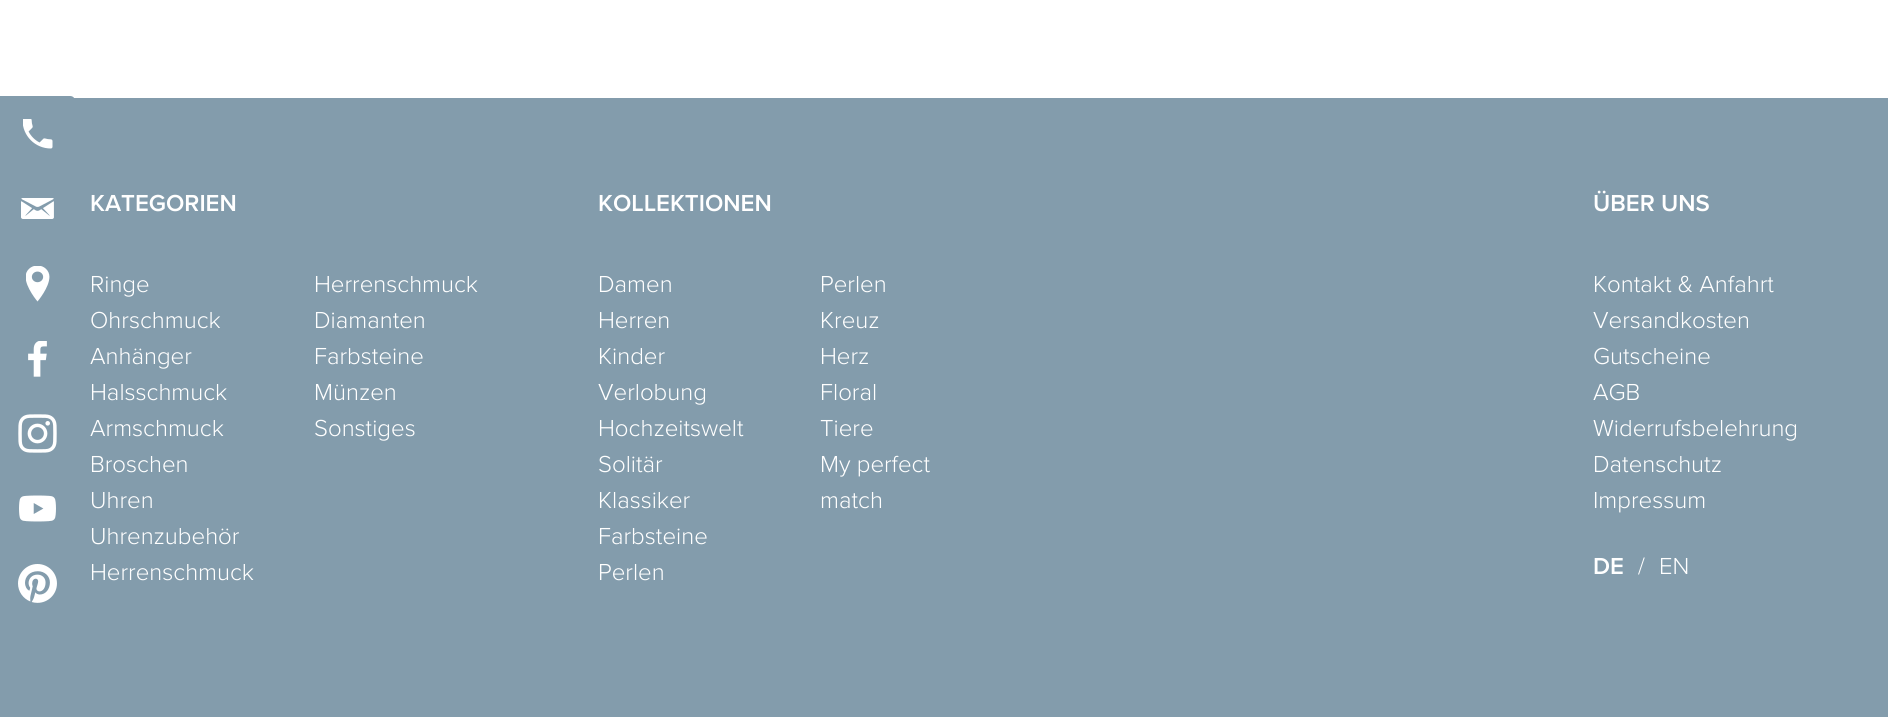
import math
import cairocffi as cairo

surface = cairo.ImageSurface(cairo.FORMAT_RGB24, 1888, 717)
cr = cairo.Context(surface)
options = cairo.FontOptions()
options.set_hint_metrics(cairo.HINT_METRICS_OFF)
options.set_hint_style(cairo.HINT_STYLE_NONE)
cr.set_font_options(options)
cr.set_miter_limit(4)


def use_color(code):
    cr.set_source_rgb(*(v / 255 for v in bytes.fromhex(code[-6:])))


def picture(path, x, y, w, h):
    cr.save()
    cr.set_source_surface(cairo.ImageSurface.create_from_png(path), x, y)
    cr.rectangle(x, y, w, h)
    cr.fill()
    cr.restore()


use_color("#ffffff")
cr.paint()
use_color("#839cac")
cr.rectangle(0, 98, 1888, 619)
cr.fill()
cr.new_path()
cr.move_to(0, 96)
cr.line_to(70, 96)
cr.curve_to(73, 96, 75, 98, 75, 101)
cr.line_to(75, 616)
cr.curve_to(75, 619, 73, 621, 70, 621)
cr.line_to(0, 621)
cr.close_path()
cr.fill()
picture("img1.png", 23, 119, 30, 30)
picture("img2.png", 21, 198, 33, 21)
picture("img3.png", 26, 266, 24, 36)
picture("img4.png", 28, 341, 19, 36)
picture("img5.png", 18, 414, 39, 39)
picture("img6.png", 19, 495, 37, 27)
picture("img7.png", 18, 564, 39, 39)
cr.select_font_face("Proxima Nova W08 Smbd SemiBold")
cr.set_font_size(24)
use_color("#ffffff")
cr.move_to(90, 211)
cr.show_text("KATEGORIEN")
cr.select_font_face("Proxima Nova Light")
cr.move_to(90, 292)
cr.show_text("Ringe")
cr.move_to(90, 328)
cr.show_text("Ohrschmuck")
cr.move_to(90, 364)
cr.show_text("Anhänger")
cr.move_to(90, 400)
cr.show_text("Halsschmuck")
cr.move_to(90, 436)
cr.show_text("Armschmuck")
cr.move_to(90, 472)
cr.show_text("Broschen")
cr.move_to(90, 508)
cr.show_text("Uhren")
cr.move_to(90, 544)
cr.show_text("Uhrenzubehör")
cr.move_to(90, 580)
cr.show_text("Herrenschmuck")
cr.move_to(314, 292)
cr.show_text("Herrenschmuck")
cr.move_to(314, 328)
cr.show_text("Diamanten")
cr.move_to(314, 364)
cr.show_text("Farbsteine")
cr.move_to(314, 400)
cr.show_text("Münzen")
cr.move_to(314, 436)
cr.show_text("Sonstiges")
cr.select_font_face("Proxima Nova W08 Smbd SemiBold")
cr.move_to(598, 211)
cr.show_text("KOLLEKTIONEN")
cr.select_font_face("Proxima Nova Light")
cr.move_to(598, 292)
cr.show_text("Damen")
cr.move_to(598, 328)
cr.show_text("Herren")
cr.move_to(598, 364)
cr.show_text("Kinder")
cr.move_to(598, 400)
cr.show_text("Verlobung")
cr.move_to(598, 436)
cr.show_text("Hochzeitswelt")
cr.move_to(598, 472)
cr.show_text("Solitär")
cr.move_to(598, 508)
cr.show_text("Klassiker")
cr.move_to(598, 544)
cr.show_text("Farbsteine")
cr.move_to(598, 580)
cr.show_text("Perlen")
cr.move_to(820, 292)
cr.show_text("Perlen")
cr.move_to(820, 328)
cr.show_text("Kreuz")
cr.move_to(820, 364)
cr.show_text("Herz")
cr.move_to(820, 400)
cr.show_text("Floral")
cr.move_to(820, 436)
cr.show_text("Tiere")
cr.move_to(820, 472)
cr.show_text("My perfect")
cr.move_to(820, 508)
cr.show_text("match")
cr.select_font_face("Proxima Nova W08 Smbd SemiBold")
cr.move_to(1593, 211)
cr.show_text("ÜBER UNS")
cr.select_font_face("Proxima Nova Light")
cr.move_to(1593, 292)
cr.show_text("Kontakt & Anfahrt")
cr.move_to(1593, 328)
cr.show_text("Versandkosten")
cr.move_to(1593, 364)
cr.show_text("Gutscheine")
cr.move_to(1593, 400)
cr.show_text("AGB")
cr.move_to(1593, 436)
cr.show_text("Widerrufsbelehrung")
cr.move_to(1593, 472)
cr.show_text("Datenschutz")
cr.move_to(1593, 508)
cr.show_text("Impressum")
cr.select_font_face("Proxima Nova W08 Smbd SemiBold")
cr.move_to(1593, 574)
cr.show_text("DE")
cr.select_font_face("Proxima Nova Light")
cr.move_to(1638, 574)
cr.show_text("/")
cr.move_to(1659, 574)
cr.show_text("EN")
surface.write_to_png("result.png")
